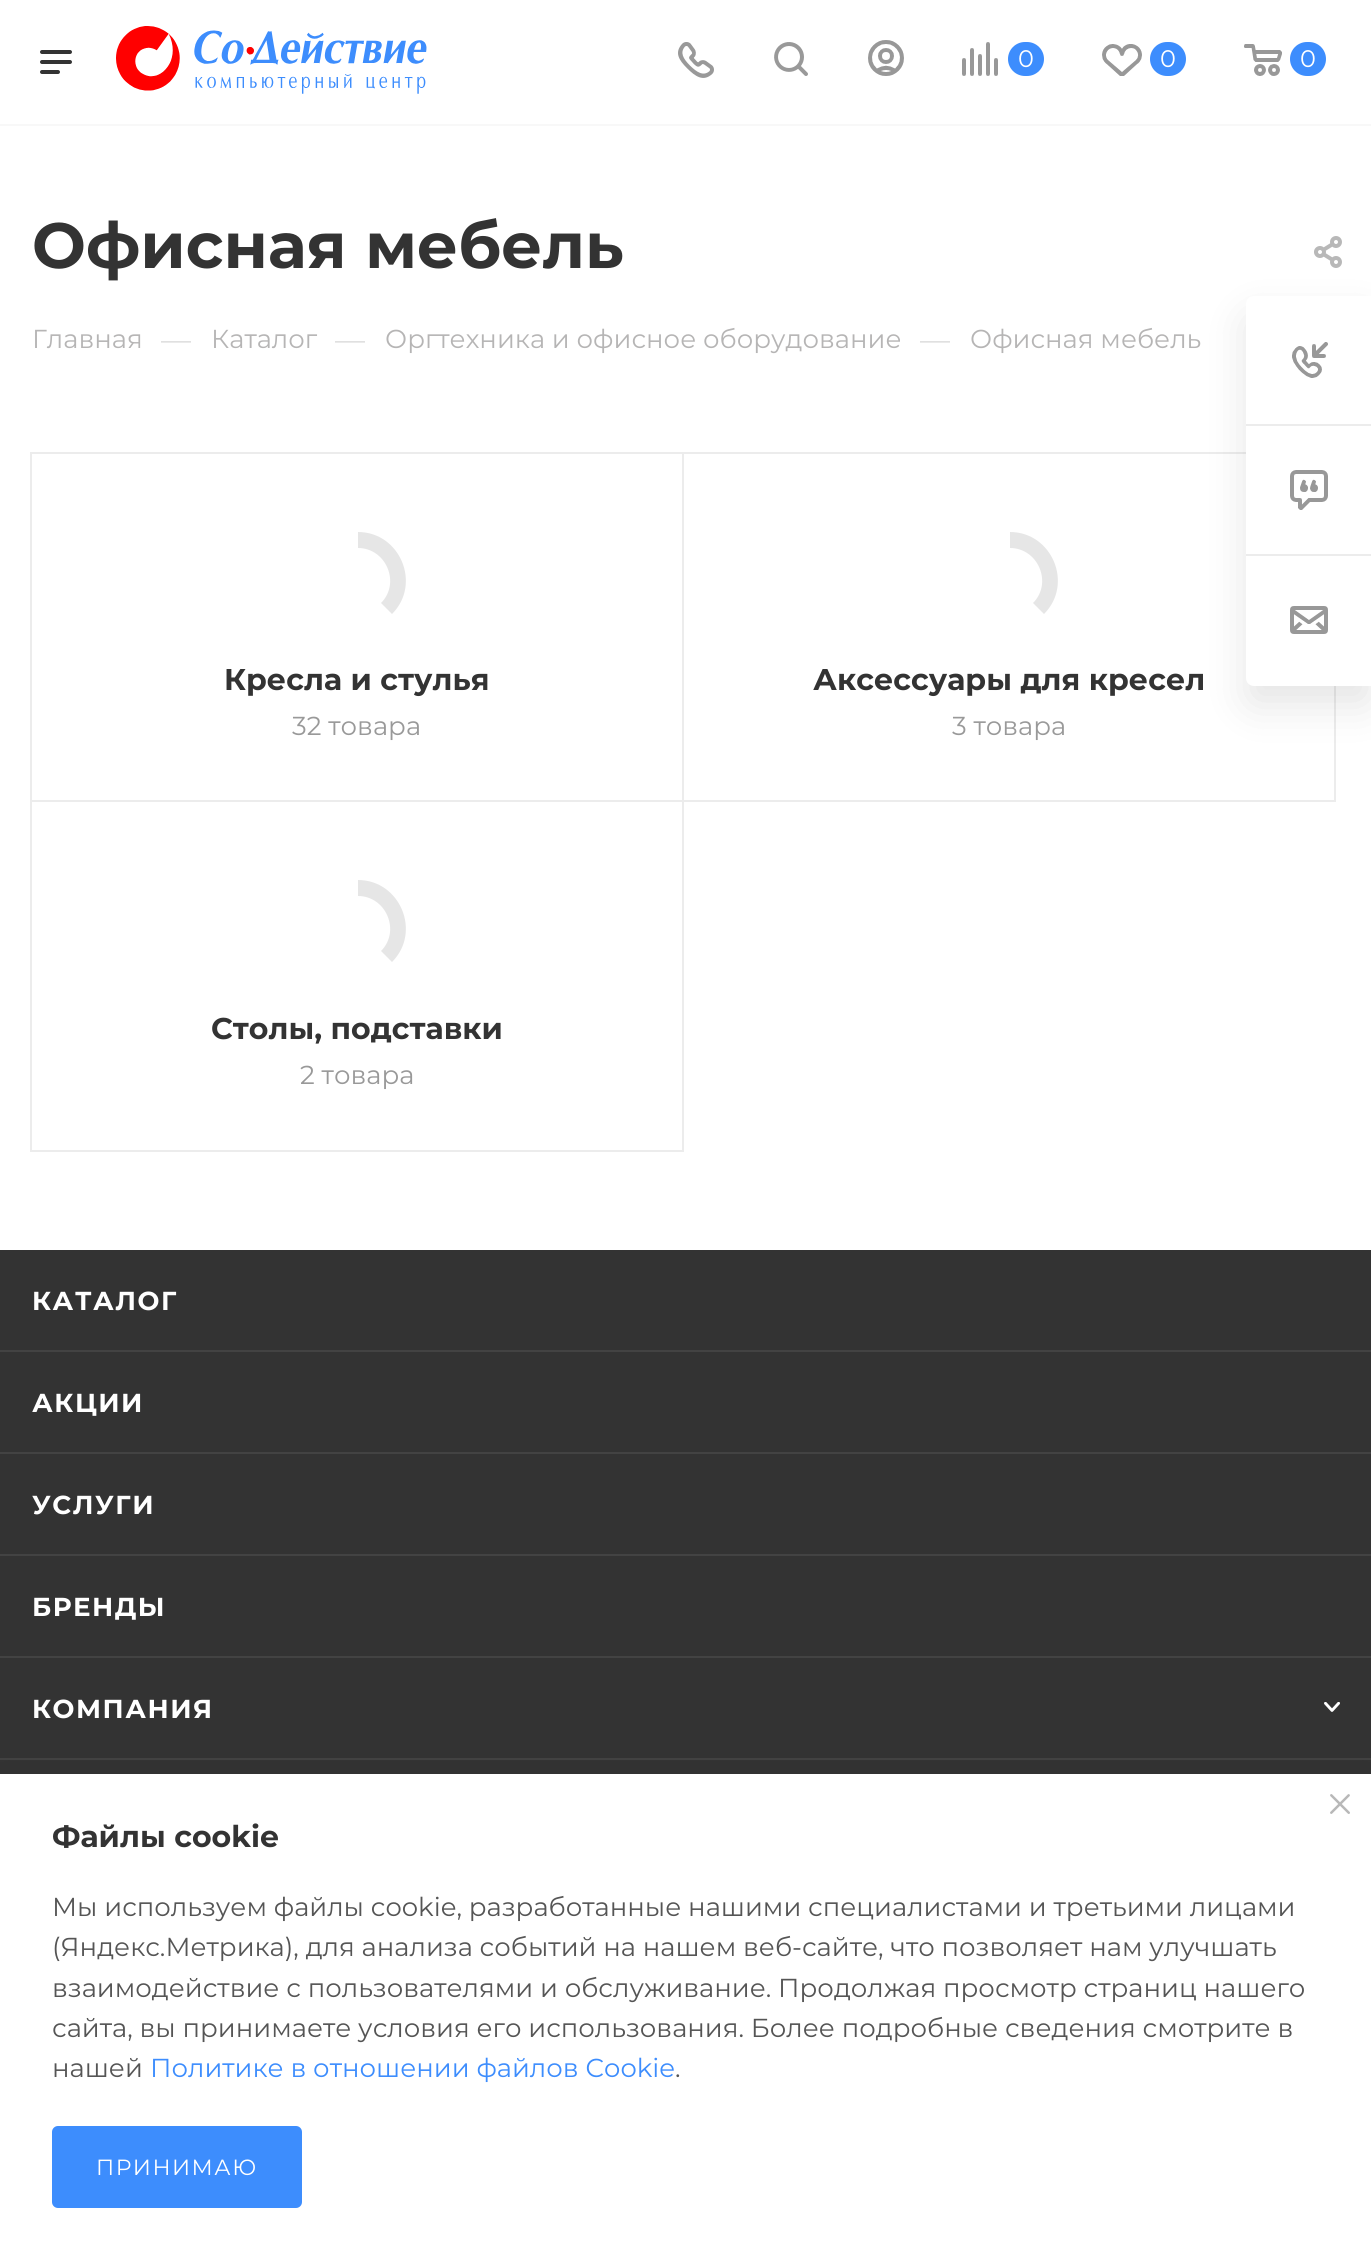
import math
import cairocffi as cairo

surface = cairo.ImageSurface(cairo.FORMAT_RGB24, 1371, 2248)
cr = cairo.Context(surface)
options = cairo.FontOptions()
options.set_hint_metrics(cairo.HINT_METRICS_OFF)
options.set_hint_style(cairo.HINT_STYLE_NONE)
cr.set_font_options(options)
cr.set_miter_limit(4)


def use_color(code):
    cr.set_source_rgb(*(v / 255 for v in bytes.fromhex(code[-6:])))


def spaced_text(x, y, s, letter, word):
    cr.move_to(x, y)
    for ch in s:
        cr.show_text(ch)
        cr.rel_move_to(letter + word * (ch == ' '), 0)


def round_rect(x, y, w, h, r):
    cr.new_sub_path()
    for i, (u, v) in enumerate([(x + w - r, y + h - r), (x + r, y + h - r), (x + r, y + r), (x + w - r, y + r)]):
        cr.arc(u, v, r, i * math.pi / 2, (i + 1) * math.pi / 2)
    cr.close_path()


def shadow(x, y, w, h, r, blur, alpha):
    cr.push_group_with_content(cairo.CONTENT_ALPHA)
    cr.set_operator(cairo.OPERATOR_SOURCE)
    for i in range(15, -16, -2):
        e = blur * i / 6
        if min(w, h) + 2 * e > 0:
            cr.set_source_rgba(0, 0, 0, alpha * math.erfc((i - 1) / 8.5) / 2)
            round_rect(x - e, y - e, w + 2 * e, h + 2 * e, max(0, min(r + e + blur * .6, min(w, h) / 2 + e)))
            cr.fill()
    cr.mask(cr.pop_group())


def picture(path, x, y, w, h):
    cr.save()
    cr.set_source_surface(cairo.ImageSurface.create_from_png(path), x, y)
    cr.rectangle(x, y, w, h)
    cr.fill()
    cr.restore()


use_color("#ffffff")
cr.paint()
use_color("#f8f8f8")
cr.rectangle(0, 124, 1371, 2)
cr.fill()
picture("img1.png", 40, 50, 32, 24)
picture("img2.png", 116, 26, 311, 68)
picture("img3.png", 678, 42, 36, 36)
picture("img4.png", 774, 42, 34, 34)
picture("img5.png", 868, 40, 36, 36)
picture("img6.png", 962, 42, 36, 34)
use_color("#3d8dfd")
round_rect(1008, 42, 36, 34, 17)
cr.fill()
cr.select_font_face("Montserrat")
cr.set_font_size(24)
use_color("#ffffff")
cr.move_to(1018, 67)
cr.show_text("0")
picture("img7.png", 1102, 44, 40, 32)
use_color("#3d8dfd")
round_rect(1150, 42, 36, 34, 17)
cr.fill()
use_color("#ffffff")
cr.move_to(1160, 67)
cr.show_text("0")
picture("img8.png", 1244, 44, 38, 32)
use_color("#3d8dfd")
round_rect(1290, 42, 36, 34, 17)
cr.fill()
use_color("#ffffff")
cr.move_to(1300, 67)
cr.show_text("0")
cr.select_font_face("Montserrat", cairo.FONT_SLANT_NORMAL, cairo.FONT_WEIGHT_BOLD)
cr.set_font_size(64)
use_color("#333333")
cr.move_to(32, 268)
cr.show_text("Офисная мебель")
picture("img9.png", 1314, 236, 28, 32)
cr.select_font_face("Montserrat")
cr.set_font_size(26)
use_color("#b6b5b5")
cr.move_to(32, 348)
cr.show_text("Главная")
cr.set_font_size(30)
use_color("#dddddd")
cr.move_to(161, 350)
cr.show_text("—")
cr.set_font_size(26)
use_color("#b6b5b5")
cr.move_to(211, 348)
cr.show_text("Каталог")
cr.set_font_size(30)
use_color("#dddddd")
cr.move_to(335, 350)
cr.show_text("—")
cr.set_font_size(26)
use_color("#b6b5b5")
cr.move_to(385, 348)
cr.show_text("Оргтехника и офисное оборудование")
cr.set_font_size(30)
use_color("#dddddd")
cr.move_to(920, 350)
cr.show_text("—")
cr.set_font_size(26)
use_color("#b6b5b5")
cr.move_to(970, 348)
cr.show_text("Офисная мебель")
cr.rectangle(31, 453, 652, 348)
use_color("#ececec")
cr.stroke()
use_color("#e6e6e6")
cr.new_path()
cr.move_to(358, 532)
cr.curve_to(400, 532, 422, 584, 392, 614)
cr.line_to(381, 603)
cr.curve_to(401, 583, 386, 548, 358, 548)
cr.close_path()
cr.fill()
cr.select_font_face("Montserrat", cairo.FONT_SLANT_NORMAL, cairo.FONT_WEIGHT_BOLD)
cr.set_font_size(30)
use_color("#333333")
cr.move_to(224, 690)
cr.show_text("Кресла и стулья")
cr.select_font_face("Montserrat")
cr.set_font_size(26)
use_color("#999999")
cr.move_to(292, 735)
cr.show_text("32 товара")
cr.rectangle(683, 453, 652, 348)
use_color("#ececec")
cr.stroke()
use_color("#e6e6e6")
cr.new_path()
cr.move_to(1010, 532)
cr.curve_to(1052, 532, 1074, 584, 1044, 614)
cr.line_to(1033, 603)
cr.curve_to(1053, 583, 1038, 548, 1010, 548)
cr.close_path()
cr.fill()
cr.select_font_face("Montserrat", cairo.FONT_SLANT_NORMAL, cairo.FONT_WEIGHT_BOLD)
cr.set_font_size(30)
use_color("#333333")
cr.move_to(813, 690)
cr.show_text("Аксессуары для кресел")
cr.select_font_face("Montserrat")
cr.set_font_size(26)
use_color("#999999")
cr.move_to(952, 735)
cr.show_text("3 товара")
cr.rectangle(31, 801, 652, 350)
use_color("#ececec")
cr.stroke()
use_color("#e6e6e6")
cr.new_path()
cr.move_to(358, 880)
cr.curve_to(400, 880, 422, 932, 392, 962)
cr.line_to(381, 951)
cr.curve_to(401, 931, 386, 896, 358, 896)
cr.close_path()
cr.fill()
cr.select_font_face("Montserrat", cairo.FONT_SLANT_NORMAL, cairo.FONT_WEIGHT_BOLD)
cr.set_font_size(30)
use_color("#333333")
cr.move_to(211, 1039)
cr.show_text("Столы, подставки")
cr.select_font_face("Montserrat")
cr.set_font_size(26)
use_color("#999999")
cr.move_to(300, 1084)
cr.show_text("2 товара")
use_color("#000000")
shadow(1246, 316, 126, 390, 8, 20, 0.1)
use_color("#ffffff")
cr.new_path()
cr.move_to(1254, 296)
cr.line_to(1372, 296)
cr.line_to(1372, 686)
cr.line_to(1254, 686)
cr.curve_to(1249.5, 686, 1246, 682.5, 1246, 678)
cr.line_to(1246, 304)
cr.curve_to(1246, 299.5, 1249.5, 296, 1254, 296)
cr.close_path()
cr.fill()
use_color("#ececec")
cr.rectangle(1246, 424, 125, 2)
cr.fill()
picture("img10.png", 1292, 342, 36, 36)
cr.rectangle(1246, 554, 125, 2)
cr.fill()
picture("img11.png", 1290, 470, 38, 40)
picture("img12.png", 1290, 606, 38, 28)
use_color("#333333")
cr.rectangle(0, 1250, 1371, 524)
cr.fill()
use_color("#434343")
cr.rectangle(0, 1350, 1371, 2)
cr.fill()
cr.select_font_face("Montserrat", cairo.FONT_SLANT_NORMAL, cairo.FONT_WEIGHT_BOLD)
use_color("#ffffff")
spaced_text(32, 1310, "КАТАЛОГ", 1.5, 0)
use_color("#434343")
cr.rectangle(0, 1452, 1371, 2)
cr.fill()
use_color("#ffffff")
spaced_text(32, 1412, "АКЦИИ", 1.5, 0)
use_color("#434343")
cr.rectangle(0, 1554, 1371, 2)
cr.fill()
use_color("#ffffff")
spaced_text(32, 1514, "УСЛУГИ", 1.5, 0)
use_color("#434343")
cr.rectangle(0, 1656, 1371, 2)
cr.fill()
use_color("#ffffff")
spaced_text(32, 1616, "БРЕНДЫ", 1.5, 0)
use_color("#434343")
cr.rectangle(0, 1758, 1371, 2)
cr.fill()
use_color("#ffffff")
spaced_text(32, 1718, "КОМПАНИЯ", 1.5, 0)
picture("img13.png", 1324, 1702, 16, 10)
use_color("#000000")
shadow(0, 1784, 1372, 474, 0, 20, 0.12)
use_color("#ffffff")
cr.rectangle(0, 1774, 1371, 474)
cr.fill()
picture("img14.png", 1330, 1794, 20, 20)
cr.set_font_size(30)
use_color("#333333")
cr.move_to(52, 1847)
cr.show_text("Файлы cookie")
cr.select_font_face("Montserrat")
cr.set_font_size(26)
use_color("#555555")
cr.move_to(52, 1916)
cr.show_text("Мы используем файлы cookie, разработанные нашими специалистами и третьими лицами")
cr.move_to(52, 1956)
cr.show_text("(Яндекс.Метрика), для анализа событий на нашем веб-сайте, что позволяет нам улучшать")
cr.move_to(52, 1997)
cr.show_text("взаимодействие с пользователями и обслуживание. Продолжая просмотр страниц нашего")
cr.move_to(52, 2037)
cr.show_text("сайта, вы принимаете условия его использования. Более подробные сведения смотрите в")
cr.move_to(52, 2077)
cr.show_text("нашей")
use_color("#3d8dfd")
cr.move_to(150, 2077)
cr.show_text("Политике в отношении файлов Cookie")
use_color("#555555")
cr.move_to(675, 2077)
cr.show_text(".")
use_color("#3d8dfd")
round_rect(53, 2127, 248, 80, 5)
cr.fill_preserve()
cr.stroke()
cr.set_font_size(22)
use_color("#ffffff")
spaced_text(96, 2175, "ПРИНИМАЮ", 1.5, 0)
surface.write_to_png("result.png")
